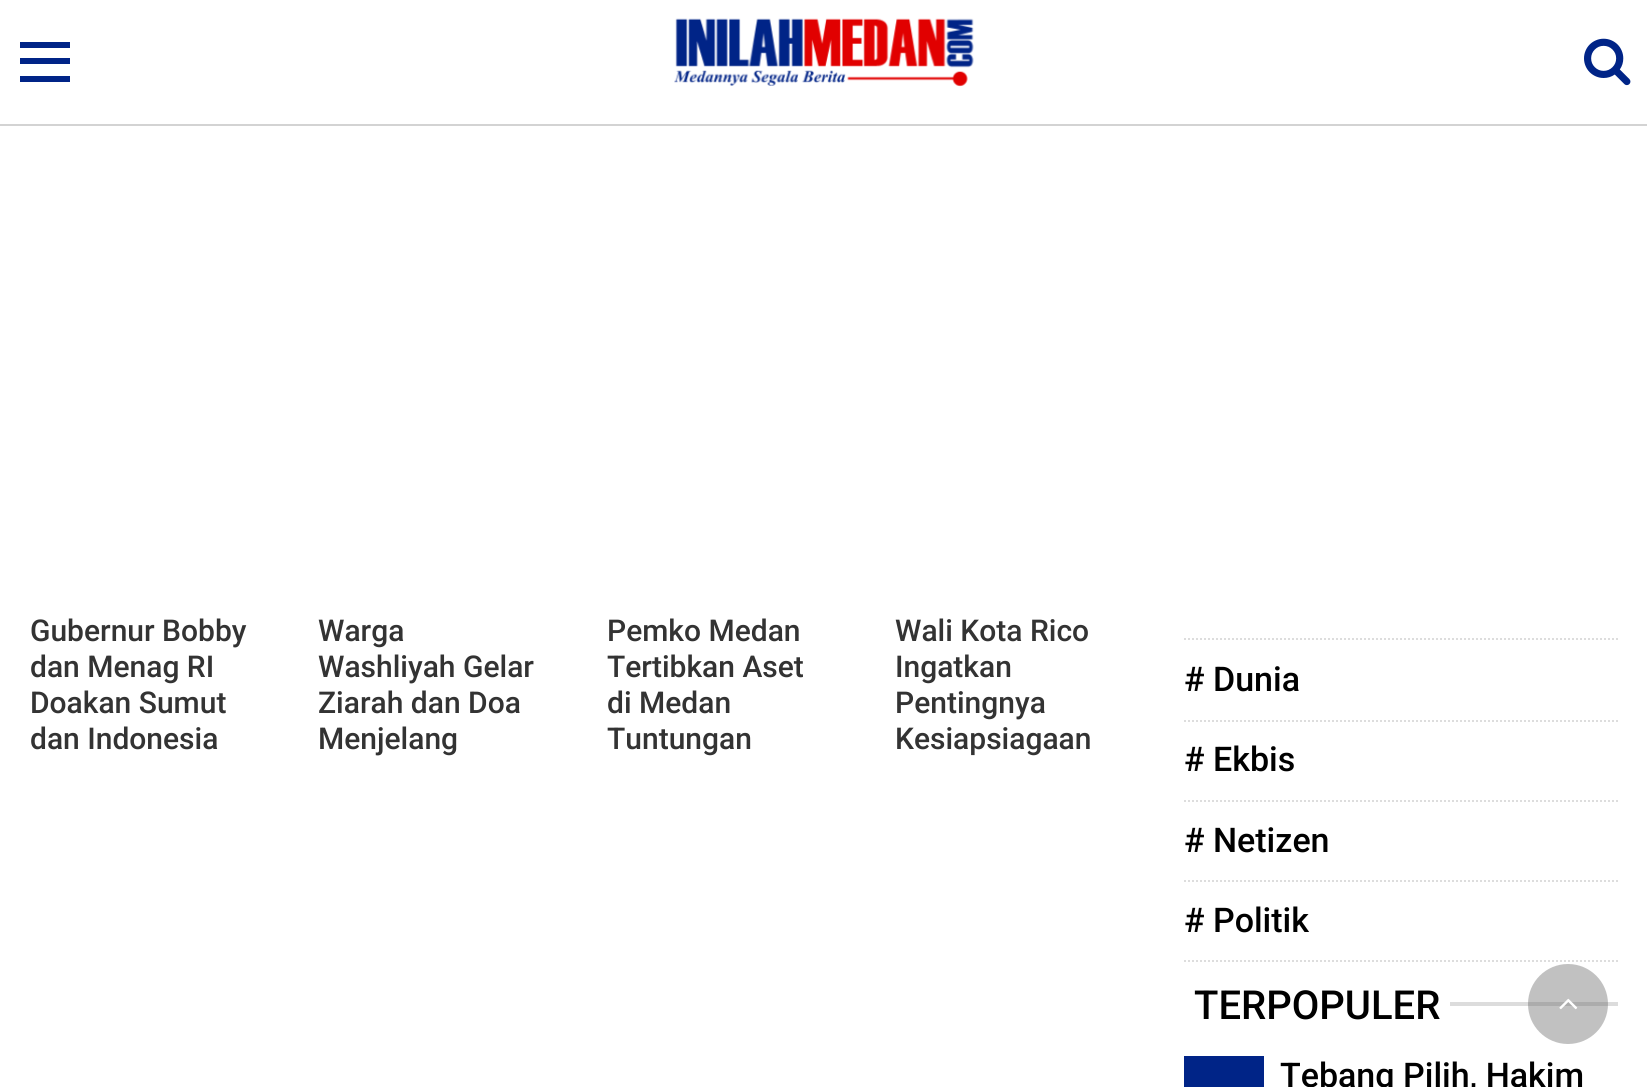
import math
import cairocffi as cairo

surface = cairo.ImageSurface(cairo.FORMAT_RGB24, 1647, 1087)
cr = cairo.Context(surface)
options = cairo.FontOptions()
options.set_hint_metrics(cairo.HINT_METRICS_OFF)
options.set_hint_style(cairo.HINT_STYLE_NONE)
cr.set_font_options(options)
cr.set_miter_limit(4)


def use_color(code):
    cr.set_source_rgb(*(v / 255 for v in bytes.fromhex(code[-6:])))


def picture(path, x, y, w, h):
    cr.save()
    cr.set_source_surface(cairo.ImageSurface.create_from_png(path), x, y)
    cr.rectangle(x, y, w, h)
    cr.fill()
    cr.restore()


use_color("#ffffff")
cr.paint()
picture("img1.png", 674, 18, 300, 69)
use_color("#d3d3d3")
cr.rectangle(0, 124, 1647, 2)
cr.fill()
use_color("#002487")
cr.rectangle(20, 42, 50, 6)
cr.fill()
cr.rectangle(20, 58, 50, 6)
cr.fill()
cr.rectangle(20, 76, 50, 6)
cr.fill()
picture("img2.png", 1584, 38, 47, 48)
cr.select_font_face("Roboto Medium")
cr.set_font_size(30)
use_color("#333333")
cr.move_to(30, 641)
cr.show_text("Gubernur Bobby")
cr.move_to(30, 677)
cr.show_text("dan Menag RI")
cr.move_to(30, 713)
cr.show_text("Doakan Sumut")
cr.move_to(30, 749)
cr.show_text("dan Indonesia")
cr.move_to(318, 641)
cr.show_text("Warga")
cr.move_to(318, 677)
cr.show_text("Washliyah Gelar")
cr.move_to(318, 713)
cr.show_text("Ziarah dan Doa")
cr.move_to(318, 749)
cr.show_text("Menjelang")
cr.move_to(607, 641)
cr.show_text("Pemko Medan")
cr.move_to(607, 677)
cr.show_text("Tertibkan Aset")
cr.move_to(607, 713)
cr.show_text("di Medan")
cr.move_to(607, 749)
cr.show_text("Tuntungan")
cr.move_to(895, 641)
cr.show_text("Wali Kota Rico")
cr.move_to(895, 677)
cr.show_text("Ingatkan")
cr.move_to(895, 713)
cr.show_text("Pentingnya")
cr.move_to(895, 749)
cr.show_text("Kesiapsiagaan")
cr.new_path()
cr.move_to(1184, 639)
cr.line_to(1618, 639)
use_color("#dddddd")
cr.set_dash([2, 2])
cr.stroke()
cr.new_path()
cr.move_to(1184, 721)
cr.line_to(1618, 721)
cr.stroke()
cr.set_font_size(34)
use_color("#000000")
cr.move_to(1184, 691)
cr.show_text("# Dunia")
cr.new_path()
cr.move_to(1184, 801)
cr.line_to(1618, 801)
use_color("#dddddd")
cr.stroke()
use_color("#000000")
cr.move_to(1184, 771)
cr.show_text("# Ekbis")
cr.new_path()
cr.move_to(1184, 881)
cr.line_to(1618, 881)
use_color("#dddddd")
cr.stroke()
use_color("#000000")
cr.move_to(1184, 852)
cr.show_text("# Netizen")
cr.new_path()
cr.move_to(1184, 961)
cr.line_to(1618, 961)
use_color("#dddddd")
cr.stroke()
use_color("#000000")
cr.move_to(1184, 932)
cr.show_text("# Politik")
use_color("#dcdcdc")
cr.rectangle(1450, 1002, 168, 4)
cr.fill()
cr.set_font_size(40)
use_color("#000000")
cr.move_to(1194, 1019)
cr.show_text("TERPOPULER")
use_color("#002487")
cr.rectangle(1184, 1056, 80, 31)
cr.fill()
cr.set_font_size(34)
use_color("#000000")
cr.move_to(1280, 1087)
cr.show_text("Tebang Pilih, Hakim")
cr.set_source_rgba(0.392, 0.392, 0.392, 0.4)
cr.new_path()
cr.arc(1568, 1004, 40, 0, 2 * math.pi)
cr.fill()
picture("img3.png", 1559, 998, 19, 12)
surface.write_to_png("result.png")
